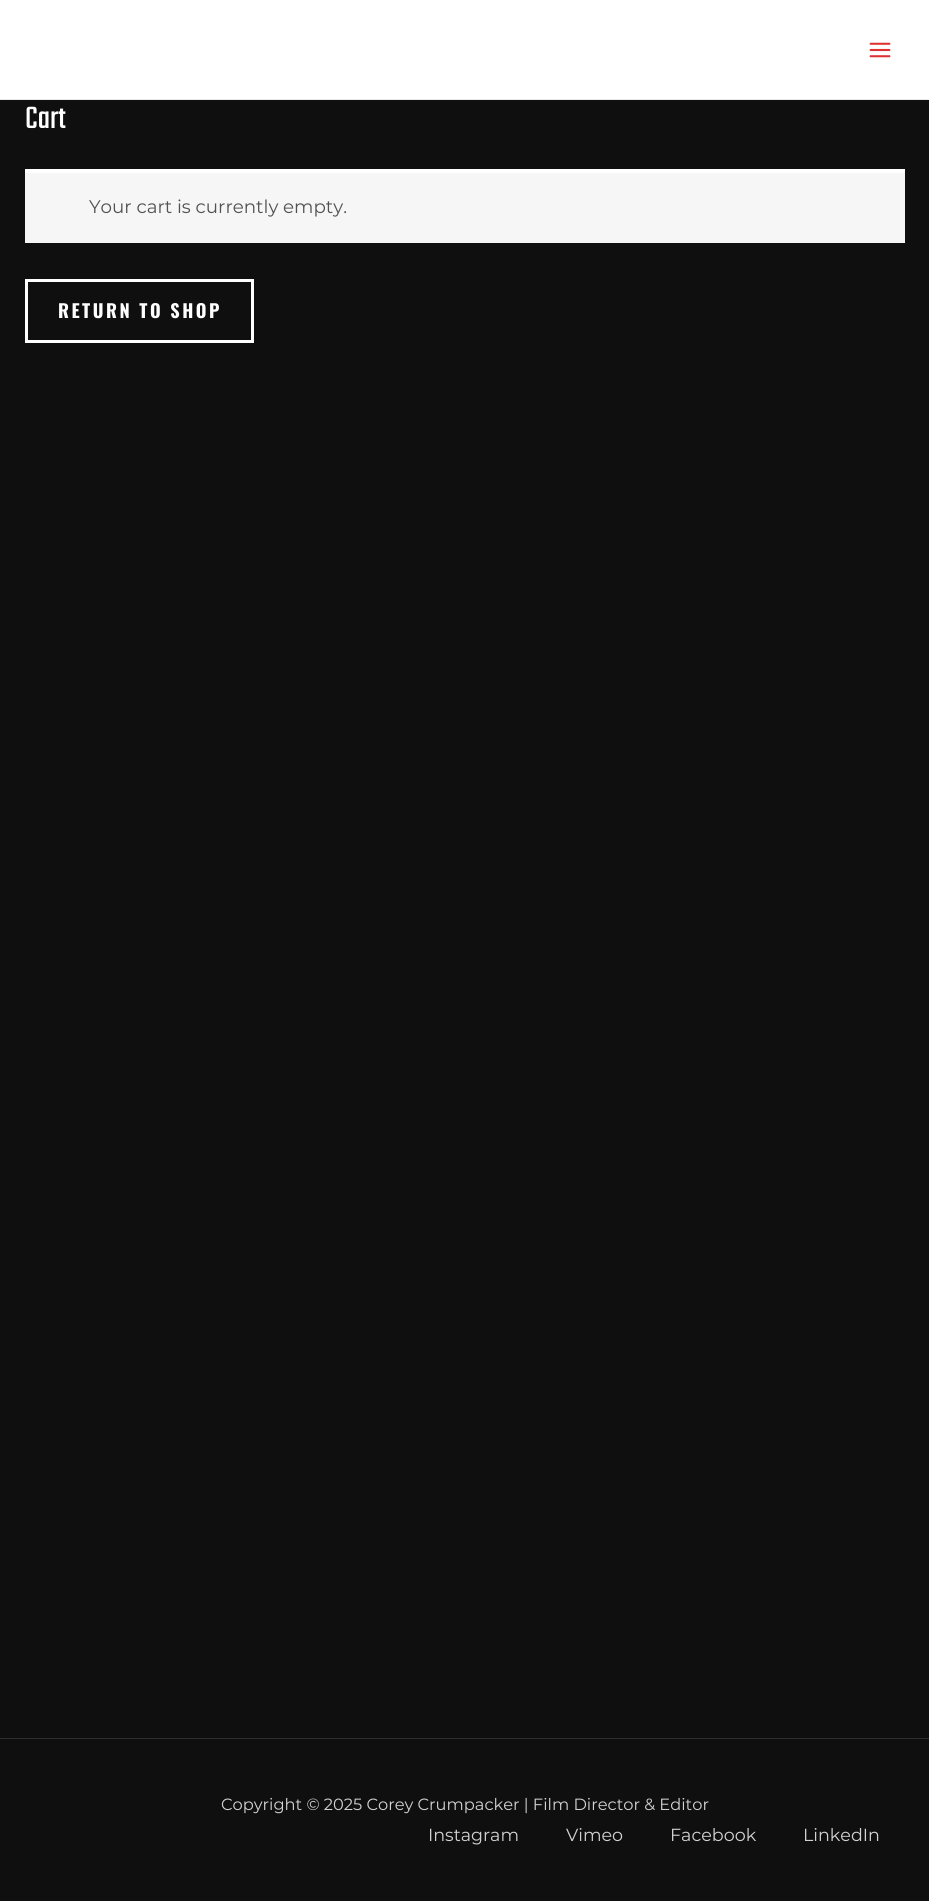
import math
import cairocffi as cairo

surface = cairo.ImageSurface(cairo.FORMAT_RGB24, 929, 1901)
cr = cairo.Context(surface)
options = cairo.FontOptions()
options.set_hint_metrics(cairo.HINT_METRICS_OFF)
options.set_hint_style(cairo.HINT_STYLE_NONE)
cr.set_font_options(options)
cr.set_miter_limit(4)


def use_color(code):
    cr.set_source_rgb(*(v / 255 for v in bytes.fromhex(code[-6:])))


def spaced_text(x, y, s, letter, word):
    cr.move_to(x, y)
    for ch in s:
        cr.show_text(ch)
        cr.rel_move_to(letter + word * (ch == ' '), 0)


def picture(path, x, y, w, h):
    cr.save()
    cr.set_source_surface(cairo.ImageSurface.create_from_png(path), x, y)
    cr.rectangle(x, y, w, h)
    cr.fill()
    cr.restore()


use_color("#0f0f0f")
cr.paint()
use_color("#ffffff")
cr.rectangle(0, 0, 929, 99)
cr.fill()
use_color("#eaeaea")
cr.rectangle(0, 99, 929, 1)
cr.fill()
picture("img1.png", 869, 42, 22, 16)
cr.select_font_face("Teko")
cr.set_font_size(34)
use_color("#ffffff")
cr.move_to(25, 128)
cr.show_text("Cart")
use_color("#f7f6f7")
cr.rectangle(25, 173, 880, 70)
cr.fill()
use_color("#ffffff")
cr.rectangle(25, 169, 880, 4)
cr.fill()
cr.select_font_face("Montserrat Thin")
cr.set_font_size(18.25)
use_color("#515151")
cr.move_to(89, 213)
cr.show_text("Your cart is currently empty.")
cr.rectangle(26.5, 280.5, 226, 61)
use_color("#ffffff")
cr.set_line_width(3)
cr.stroke()
cr.select_font_face("Oswald", cairo.FONT_SLANT_NORMAL, cairo.FONT_WEIGHT_BOLD)
spaced_text(58, 318, "RETURN TO SHOP", 2.5, 0)
use_color("#2e2e2e")
cr.rectangle(0, 1738, 929, 1)
cr.fill()
cr.select_font_face("Montserrat Thin")
cr.set_font_size(16.25)
use_color("#d2d2d2")
cr.move_to(221, 1810)
cr.show_text("Copyright © 2025 Corey Crumpacker | Film Director & Editor")
cr.set_font_size(17.5)
cr.move_to(428, 1841)
cr.show_text("Instagram")
cr.move_to(566, 1841)
cr.show_text("Vimeo")
cr.move_to(670, 1841)
cr.show_text("Facebook")
cr.move_to(803, 1841)
cr.show_text("LinkedIn")
surface.write_to_png("result.png")
